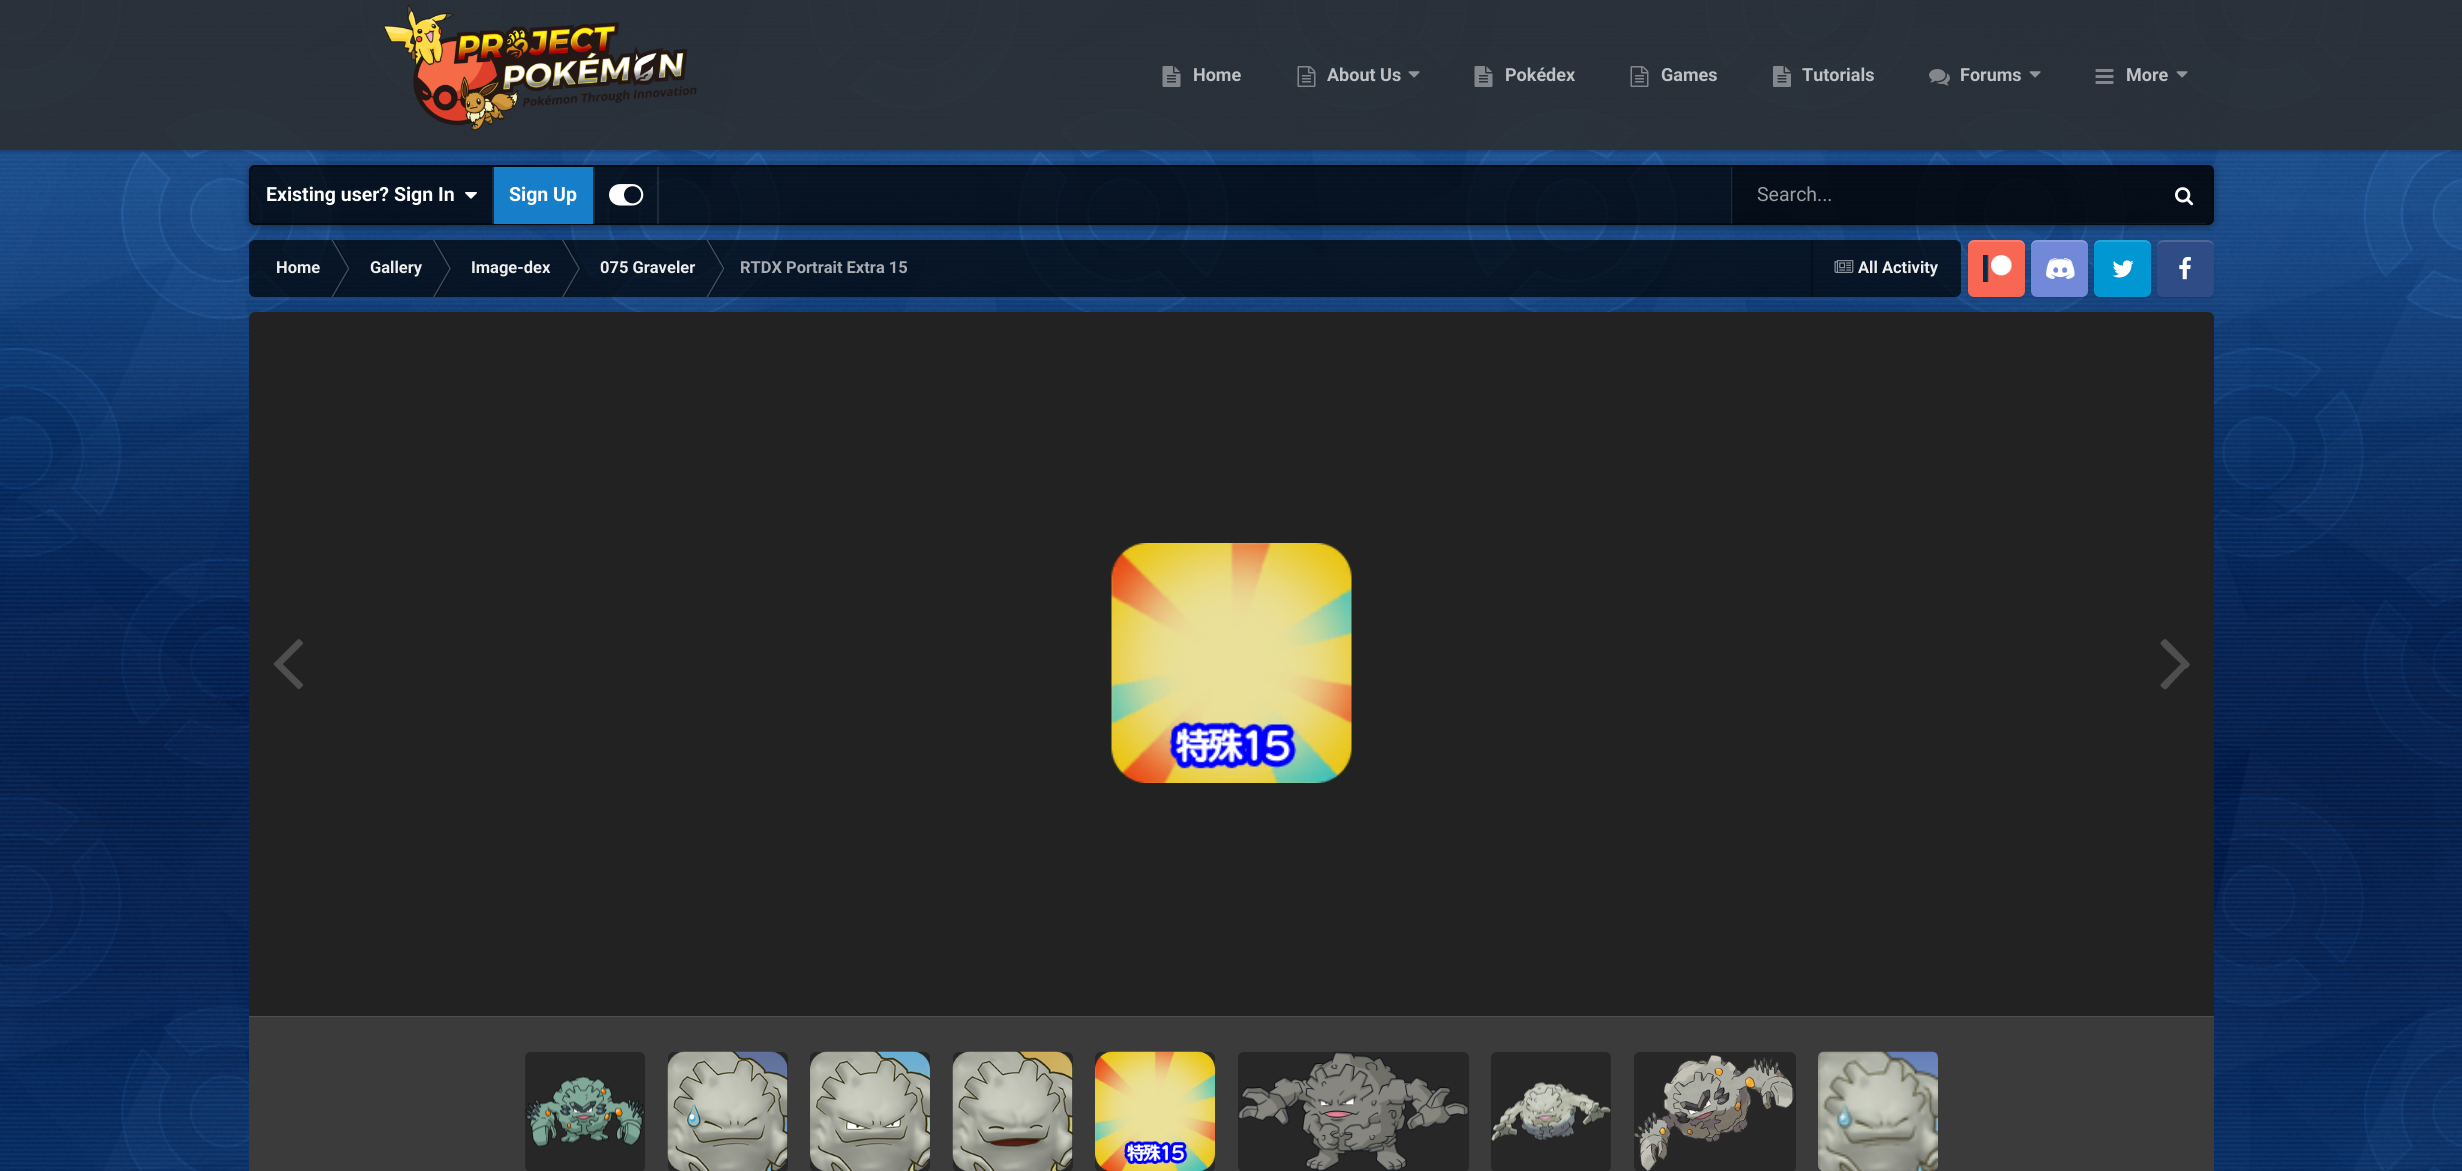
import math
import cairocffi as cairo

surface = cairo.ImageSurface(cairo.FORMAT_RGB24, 2462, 1171)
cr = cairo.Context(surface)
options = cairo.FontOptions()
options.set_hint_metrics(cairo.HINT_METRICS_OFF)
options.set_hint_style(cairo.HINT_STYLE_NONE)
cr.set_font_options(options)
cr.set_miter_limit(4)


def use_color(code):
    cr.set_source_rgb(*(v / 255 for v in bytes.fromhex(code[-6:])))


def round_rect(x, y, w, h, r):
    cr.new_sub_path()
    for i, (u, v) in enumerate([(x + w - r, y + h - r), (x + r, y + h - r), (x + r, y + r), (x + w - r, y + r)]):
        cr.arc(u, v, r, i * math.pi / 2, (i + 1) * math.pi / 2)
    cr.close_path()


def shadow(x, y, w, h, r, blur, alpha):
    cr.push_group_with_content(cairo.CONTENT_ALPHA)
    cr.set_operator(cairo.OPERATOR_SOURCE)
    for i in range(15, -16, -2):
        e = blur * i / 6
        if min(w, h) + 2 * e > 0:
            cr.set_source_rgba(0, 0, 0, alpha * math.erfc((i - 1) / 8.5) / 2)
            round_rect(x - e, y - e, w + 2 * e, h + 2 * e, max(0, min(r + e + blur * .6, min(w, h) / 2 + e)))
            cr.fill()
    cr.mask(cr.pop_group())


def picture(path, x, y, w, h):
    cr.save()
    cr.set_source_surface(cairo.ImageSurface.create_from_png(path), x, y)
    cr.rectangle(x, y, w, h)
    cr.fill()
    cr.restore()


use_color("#ffffff")
cr.paint()
picture("img1.png", 0, 0, 2462, 1171)
picture("img2.png", 0, 0, 2462, 1171)
cr.set_source_rgba(0, 0, 0, 0.1)
cr.rectangle(0, 150, 2462, 2)
cr.fill()
cr.save()
cr.rectangle(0, 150, 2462, 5)
cr.clip()
use_color("#000000")
shadow(0, 2, 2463, 150, 0, 3, 0.15)
cr.restore()
cr.set_source_rgba(0.173, 0.173, 0.173, 0.85)
cr.rectangle(0, 0, 2462, 150)
cr.fill()
picture("img3.png", 383, 4, 314, 126)
picture("img4.png", 1162, 66, 19, 21)
cr.select_font_face("Roboto", cairo.FONT_SLANT_NORMAL, cairo.FONT_WEIGHT_BOLD)
cr.set_font_size(18)
use_color("#bfc1c4")
cr.move_to(1193, 81)
cr.show_text("Home")
picture("img5.png", 1297, 66, 19, 21)
cr.move_to(1327, 81)
cr.show_text("About Us")
picture("img6.png", 1408, 71, 12, 7)
picture("img7.png", 1474, 66, 19, 21)
cr.move_to(1505, 81)
cr.show_text("Pokédex")
picture("img8.png", 1630, 66, 19, 21)
cr.move_to(1661, 81)
cr.show_text("Games")
picture("img9.png", 1773, 66, 18, 21)
cr.move_to(1802, 81)
cr.show_text("Tutorials")
picture("img10.png", 1929, 69, 21, 17)
cr.move_to(1960, 81)
cr.show_text("Forums")
picture("img11.png", 2029, 71, 12, 7)
picture("img12.png", 2095, 69, 19, 15)
cr.move_to(2126, 81)
cr.show_text("More")
picture("img13.png", 2176, 71, 12, 7)
cr.save()
cr.set_fill_rule(cairo.FILL_RULE_EVEN_ODD)
cr.new_path()
cr.move_to(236, 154)
cr.line_to(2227, 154)
cr.line_to(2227, 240)
cr.line_to(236, 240)
cr.close_path()
cr.move_to(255, 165)
cr.line_to(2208, 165)
cr.curve_to(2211.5, 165, 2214, 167.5, 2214, 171)
cr.line_to(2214, 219)
cr.curve_to(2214, 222.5, 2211.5, 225, 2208, 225)
cr.line_to(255, 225)
cr.curve_to(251.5, 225, 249, 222.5, 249, 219)
cr.line_to(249, 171)
cr.curve_to(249, 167.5, 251.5, 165, 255, 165)
cr.close_path()
cr.clip()
use_color("#000000")
shadow(249, 167, 1965, 60, 6, 4, 0.4)
cr.restore()
cr.set_source_rgba(0, 0, 0, 0.75)
round_rect(249, 165, 1965, 60, 6)
cr.fill()
round_rect(250, 166, 1963, 58, 5)
cr.set_source_rgba(0, 0, 0, 0.5)
cr.stroke()
cr.set_source_rgba(1, 1, 1, 0.1)
cr.rectangle(492, 167, 2, 57)
cr.fill()
cr.set_font_size(19.5)
use_color("#ffffff")
cr.move_to(266, 201)
cr.show_text("Existing user? Sign In")
picture("img14.png", 465, 192, 12, 7)
cr.set_source_rgba(1, 1, 1, 0.1)
cr.rectangle(593, 167, 2, 57)
cr.fill()
use_color("#177ec9")
cr.rectangle(494, 167, 99, 57)
cr.fill()
use_color("#ffffff")
cr.move_to(509, 201)
cr.show_text("Sign Up")
cr.set_source_rgba(1, 1, 1, 0.1)
cr.rectangle(657, 167, 2, 57)
cr.fill()
picture("img15.png", 609, 184, 35, 22)
cr.new_path()
cr.move_to(1731, 167)
cr.line_to(1731, 224)
cr.line_to(2205, 224)
cr.line_to(2208, 223)
cr.line_to(1732, 224)
cr.line_to(1732, 167)
cr.close_path()
cr.fill()
cr.set_source_rgba(0, 0, 0, 0.3)
cr.new_path()
cr.move_to(1733, 167)
cr.line_to(2207, 167)
cr.curve_to(2210.5, 167, 2213, 169.5, 2213, 173)
cr.line_to(2213, 218)
cr.curve_to(2213, 221.5, 2210.5, 224, 2207, 224)
cr.line_to(1733, 224)
cr.close_path()
cr.fill()
cr.select_font_face("Roboto")
use_color("#9b9fa3")
cr.move_to(1757, 201)
cr.show_text("Search...")
picture("img16.png", 2175, 187, 19, 19)
cr.set_source_rgba(0, 0, 0, 0.7)
round_rect(249, 240, 1712, 57, 6)
cr.fill()
cr.select_font_face("Roboto", cairo.FONT_SLANT_NORMAL, cairo.FONT_WEIGHT_BOLD)
cr.set_font_size(16.5)
use_color("#ededed")
cr.move_to(276, 273)
cr.show_text("Home")
cr.set_source_rgba(1, 1, 1, 0.25)
cr.new_path()
cr.move_to(331.5, 240)
cr.line_to(333, 240)
cr.line_to(349.5, 268.5)
cr.line_to(348, 268.5)
cr.close_path()
cr.fill()
cr.set_source_rgba(0, 0, 0, 0.3)
cr.new_path()
cr.move_to(333, 240)
cr.line_to(334.5, 240)
cr.line_to(351, 268.5)
cr.line_to(349.5, 268.5)
cr.close_path()
cr.fill()
cr.set_source_rgba(1, 1, 1, 0.25)
cr.new_path()
cr.move_to(331.5, 297)
cr.line_to(333, 297)
cr.line_to(349.5, 268.5)
cr.line_to(348, 268.5)
cr.close_path()
cr.fill()
cr.set_source_rgba(0, 0, 0, 0.3)
cr.new_path()
cr.move_to(333, 297)
cr.line_to(334.5, 297)
cr.line_to(351, 268.5)
cr.line_to(349.5, 268.5)
cr.close_path()
cr.fill()
use_color("#ededed")
cr.move_to(370, 273)
cr.show_text("Gallery")
cr.set_source_rgba(1, 1, 1, 0.25)
cr.new_path()
cr.move_to(433, 240)
cr.line_to(434.5, 240)
cr.line_to(451, 268.5)
cr.line_to(449.5, 268.5)
cr.close_path()
cr.fill()
cr.set_source_rgba(0, 0, 0, 0.3)
cr.new_path()
cr.move_to(434.5, 240)
cr.line_to(436, 240)
cr.line_to(452.5, 268.5)
cr.line_to(451, 268.5)
cr.close_path()
cr.fill()
cr.set_source_rgba(1, 1, 1, 0.25)
cr.new_path()
cr.move_to(433, 297)
cr.line_to(434.5, 297)
cr.line_to(451, 268.5)
cr.line_to(449.5, 268.5)
cr.close_path()
cr.fill()
cr.set_source_rgba(0, 0, 0, 0.3)
cr.new_path()
cr.move_to(434.5, 297)
cr.line_to(436, 297)
cr.line_to(452.5, 268.5)
cr.line_to(451, 268.5)
cr.close_path()
cr.fill()
use_color("#ededed")
cr.move_to(471, 273)
cr.show_text("Image-dex")
cr.set_source_rgba(1, 1, 1, 0.25)
cr.new_path()
cr.move_to(562, 240)
cr.line_to(563.5, 240)
cr.line_to(580, 268.5)
cr.line_to(578.5, 268.5)
cr.close_path()
cr.fill()
cr.set_source_rgba(0, 0, 0, 0.3)
cr.new_path()
cr.move_to(563.5, 240)
cr.line_to(565, 240)
cr.line_to(581.5, 268.5)
cr.line_to(580, 268.5)
cr.close_path()
cr.fill()
cr.set_source_rgba(1, 1, 1, 0.25)
cr.new_path()
cr.move_to(562, 297)
cr.line_to(563.5, 297)
cr.line_to(580, 268.5)
cr.line_to(578.5, 268.5)
cr.close_path()
cr.fill()
cr.set_source_rgba(0, 0, 0, 0.3)
cr.new_path()
cr.move_to(563.5, 297)
cr.line_to(565, 297)
cr.line_to(581.5, 268.5)
cr.line_to(580, 268.5)
cr.close_path()
cr.fill()
use_color("#ededed")
cr.move_to(600, 273)
cr.show_text("075 Graveler")
cr.set_source_rgba(1, 1, 1, 0.25)
cr.new_path()
cr.move_to(706.5, 240)
cr.line_to(708, 240)
cr.line_to(724.5, 268.5)
cr.line_to(723, 268.5)
cr.close_path()
cr.fill()
cr.set_source_rgba(0, 0, 0, 0.3)
cr.new_path()
cr.move_to(708, 240)
cr.line_to(709.5, 240)
cr.line_to(726, 268.5)
cr.line_to(724.5, 268.5)
cr.close_path()
cr.fill()
cr.set_source_rgba(1, 1, 1, 0.25)
cr.new_path()
cr.move_to(706.5, 297)
cr.line_to(708, 297)
cr.line_to(724.5, 268.5)
cr.line_to(723, 268.5)
cr.close_path()
cr.fill()
cr.set_source_rgba(0, 0, 0, 0.3)
cr.new_path()
cr.move_to(708, 297)
cr.line_to(709.5, 297)
cr.line_to(726, 268.5)
cr.line_to(724.5, 268.5)
cr.close_path()
cr.fill()
use_color("#a8acb2")
cr.move_to(740, 273)
cr.show_text("RTDX Portrait Extra 15")
cr.set_source_rgba(0, 0, 0, 0.3)
cr.rectangle(1811, 240, 2, 57)
cr.fill()
picture("img17.png", 1834, 260, 20, 13)
use_color("#ededed")
cr.move_to(1858, 273)
cr.show_text("All Activity")
use_color("#000000")
shadow(1968, 242, 57, 57, 6, 2, 0.1)
use_color("#f86754")
round_rect(1968, 240, 57, 57, 6)
cr.fill()
cr.set_source_rgba(1, 1, 1, 0.15)
cr.new_path()
cr.move_to(1974, 242)
cr.curve_to(1971, 242, 1968, 244, 1968, 248)
cr.curve_to(1968, 239, 1974, 240, 1982, 240)
cr.line_to(2012, 240)
cr.curve_to(2019, 240, 2025, 239, 2025, 248)
cr.curve_to(2025, 244, 2022, 242, 2019, 242)
cr.close_path()
cr.fill()
picture("img18.png", 1983, 255, 29, 27)
use_color("#000000")
shadow(2031, 242, 57, 57, 6, 2, 0.1)
use_color("#7289da")
round_rect(2031, 240, 57, 57, 6)
cr.fill()
cr.set_source_rgba(1, 1, 1, 0.15)
cr.new_path()
cr.move_to(2037, 242)
cr.curve_to(2034, 242, 2031, 244, 2031, 248)
cr.curve_to(2031, 239, 2037, 240, 2044, 240)
cr.line_to(2074, 240)
cr.curve_to(2082, 240, 2088, 239, 2088, 248)
cr.curve_to(2088, 244, 2085, 242, 2082, 242)
cr.close_path()
cr.fill()
picture("img19.png", 2046, 258, 29, 21)
use_color("#000000")
shadow(2094, 242, 57, 57, 6, 2, 0.1)
use_color("#0097d3")
round_rect(2094, 240, 57, 57, 6)
cr.fill()
cr.set_source_rgba(1, 1, 1, 0.15)
cr.new_path()
cr.move_to(2100, 242)
cr.curve_to(2097, 242, 2094, 244, 2094, 248)
cr.curve_to(2094, 239, 2100, 240, 2108, 240)
cr.line_to(2138, 240)
cr.curve_to(2145, 240, 2151, 239, 2151, 248)
cr.curve_to(2151, 244, 2148, 242, 2145, 242)
cr.close_path()
cr.fill()
picture("img20.png", 2112, 260, 22, 18)
use_color("#000000")
shadow(2157, 242, 57, 57, 6, 2, 0.1)
use_color("#304c87")
round_rect(2157, 240, 57, 57, 6)
cr.fill()
cr.set_source_rgba(1, 1, 1, 0.15)
cr.new_path()
cr.move_to(2163, 242)
cr.curve_to(2160, 242, 2157, 244, 2157, 248)
cr.curve_to(2157, 239, 2163, 240, 2170, 240)
cr.line_to(2200, 240)
cr.curve_to(2208, 240, 2214, 239, 2214, 248)
cr.curve_to(2214, 244, 2211, 242, 2208, 242)
cr.close_path()
cr.fill()
picture("img21.png", 2179, 256, 12, 24)
use_color("#545454")
cr.new_path()
cr.move_to(255, 312)
cr.line_to(2208, 312)
cr.curve_to(2211.5, 312, 2214, 314.5, 2214, 318)
cr.line_to(2214, 1016)
cr.line_to(249, 1016)
cr.line_to(249, 318)
cr.curve_to(249, 314.5, 251.5, 312, 255, 312)
cr.close_path()
cr.fill()
cr.set_source_rgba(0, 0, 0, 0.6)
cr.new_path()
cr.move_to(255, 312)
cr.line_to(2208, 312)
cr.curve_to(2211.5, 312, 2214, 314.5, 2214, 318)
cr.line_to(2214, 1016)
cr.line_to(249, 1016)
cr.line_to(249, 318)
cr.curve_to(249, 314.5, 251.5, 312, 255, 312)
cr.close_path()
cr.fill()
picture("img22.png", 1111, 543, 241, 240)
picture("img23.png", 273, 639, 30, 50)
use_color("#4e4e4e")
cr.new_path()
cr.move_to(2189, 663)
cr.curve_to(2192, 665, 2186, 669, 2185, 669)
cr.line_to(2170, 685)
cr.curve_to(2170, 685, 2166, 691, 2164, 689)
cr.curve_to(2163, 688, 2159, 686, 2161, 684)
cr.line_to(2181, 664)
cr.line_to(2164, 648)
cr.curve_to(2161, 644, 2159, 644, 2162, 641)
cr.curve_to(2166, 637, 2166, 640, 2170, 643)
cr.close_path()
cr.fill()
use_color("#3b3b3b")
cr.rectangle(249, 1017, 1965, 154)
cr.fill()
use_color("#4f4f4f")
cr.rectangle(249, 1016, 1965, 1)
cr.fill()
use_color("#141414")
round_rect(525, 1052, 120, 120, 6)
cr.fill()
cr.set_source_rgba(0.329, 0.329, 0.329, 0.3)
round_rect(525, 1052, 120, 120, 6)
cr.fill()
picture("img24.png", 525, 1076, 120, 71)
use_color("#141414")
round_rect(668, 1052, 120, 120, 6)
cr.fill()
cr.set_source_rgba(0.329, 0.329, 0.329, 0.3)
round_rect(668, 1052, 120, 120, 6)
cr.fill()
picture("img25.png", 667, 1051, 121, 120)
use_color("#141414")
round_rect(810, 1052, 120, 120, 6)
cr.fill()
cr.set_source_rgba(0.329, 0.329, 0.329, 0.3)
round_rect(810, 1052, 120, 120, 6)
cr.fill()
picture("img26.png", 810, 1051, 120, 120)
use_color("#141414")
round_rect(953, 1052, 120, 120, 6)
cr.fill()
cr.set_source_rgba(0.329, 0.329, 0.329, 0.3)
round_rect(953, 1052, 120, 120, 6)
cr.fill()
picture("img27.png", 952, 1051, 121, 120)
use_color("#141414")
round_rect(1095, 1052, 120, 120, 6)
cr.fill()
cr.set_source_rgba(0.329, 0.329, 0.329, 0.3)
round_rect(1095, 1052, 120, 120, 6)
cr.fill()
picture("img28.png", 1095, 1051, 120, 120)
use_color("#141414")
round_rect(1238, 1052, 231, 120, 6)
cr.fill()
cr.set_source_rgba(0.329, 0.329, 0.329, 0.3)
round_rect(1238, 1052, 231, 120, 6)
cr.fill()
picture("img29.png", 1237, 1051, 232, 120)
use_color("#141414")
round_rect(1491, 1052, 120, 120, 6)
cr.fill()
cr.set_source_rgba(0.329, 0.329, 0.329, 0.3)
round_rect(1491, 1052, 120, 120, 6)
cr.fill()
picture("img30.png", 1491, 1082, 120, 60)
use_color("#141414")
round_rect(1634, 1052, 162, 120, 6)
cr.fill()
cr.set_source_rgba(0.329, 0.329, 0.329, 0.3)
round_rect(1634, 1052, 162, 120, 6)
cr.fill()
picture("img31.png", 1634, 1054, 160, 117)
use_color("#141414")
round_rect(1818, 1052, 120, 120, 6)
cr.fill()
cr.set_source_rgba(0.329, 0.329, 0.329, 0.3)
round_rect(1818, 1052, 120, 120, 6)
cr.fill()
picture("img32.png", 1818, 1051, 120, 120)
surface.write_to_png("result.png")
